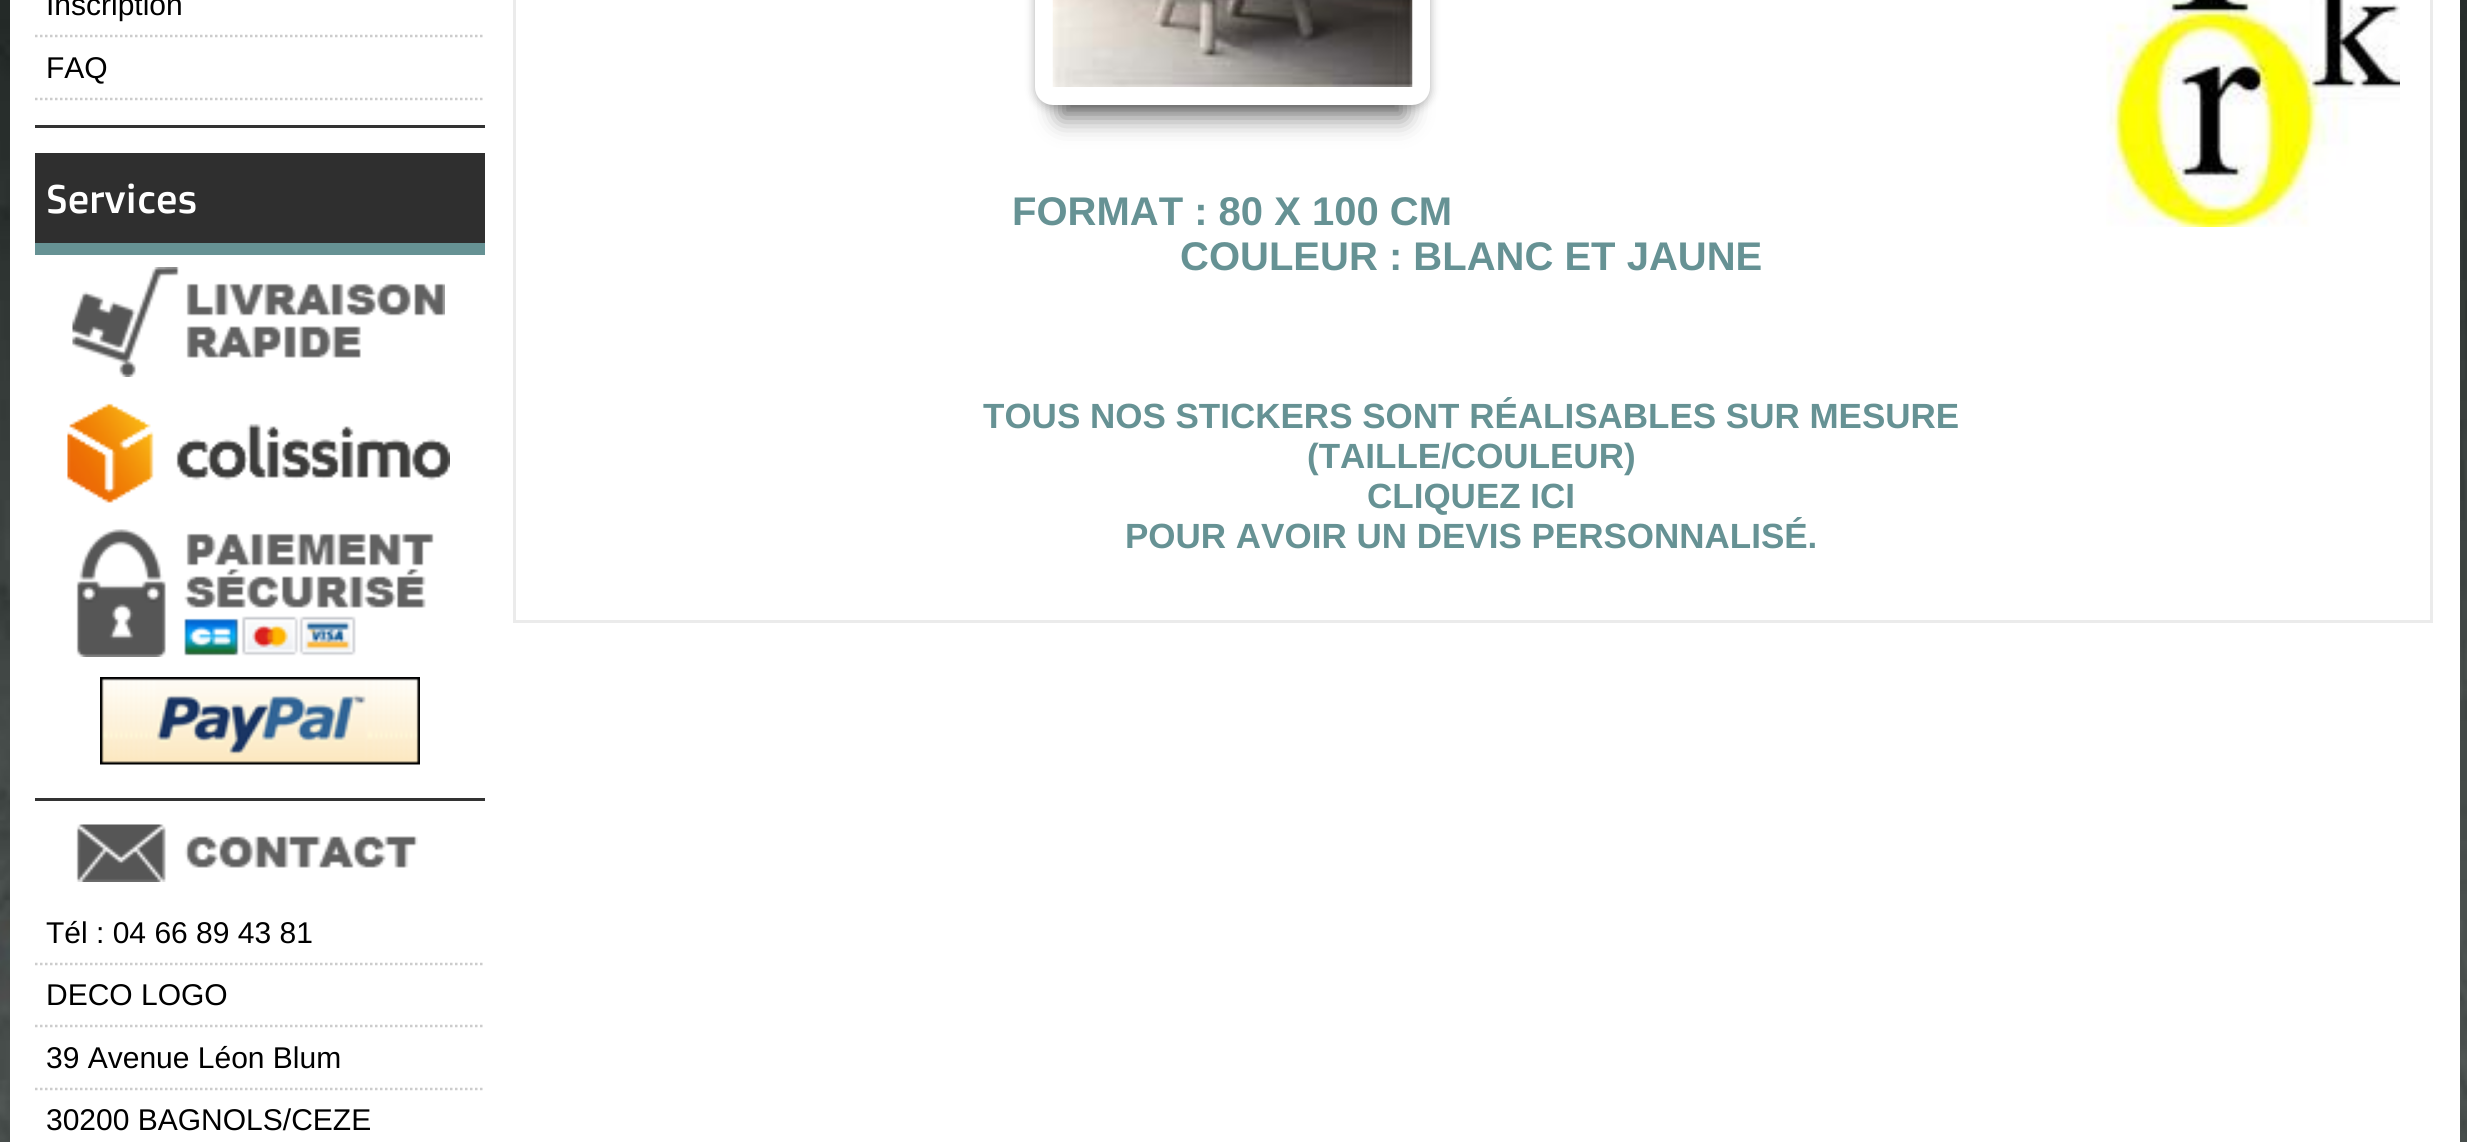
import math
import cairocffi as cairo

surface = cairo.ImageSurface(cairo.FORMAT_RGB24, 2467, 1142)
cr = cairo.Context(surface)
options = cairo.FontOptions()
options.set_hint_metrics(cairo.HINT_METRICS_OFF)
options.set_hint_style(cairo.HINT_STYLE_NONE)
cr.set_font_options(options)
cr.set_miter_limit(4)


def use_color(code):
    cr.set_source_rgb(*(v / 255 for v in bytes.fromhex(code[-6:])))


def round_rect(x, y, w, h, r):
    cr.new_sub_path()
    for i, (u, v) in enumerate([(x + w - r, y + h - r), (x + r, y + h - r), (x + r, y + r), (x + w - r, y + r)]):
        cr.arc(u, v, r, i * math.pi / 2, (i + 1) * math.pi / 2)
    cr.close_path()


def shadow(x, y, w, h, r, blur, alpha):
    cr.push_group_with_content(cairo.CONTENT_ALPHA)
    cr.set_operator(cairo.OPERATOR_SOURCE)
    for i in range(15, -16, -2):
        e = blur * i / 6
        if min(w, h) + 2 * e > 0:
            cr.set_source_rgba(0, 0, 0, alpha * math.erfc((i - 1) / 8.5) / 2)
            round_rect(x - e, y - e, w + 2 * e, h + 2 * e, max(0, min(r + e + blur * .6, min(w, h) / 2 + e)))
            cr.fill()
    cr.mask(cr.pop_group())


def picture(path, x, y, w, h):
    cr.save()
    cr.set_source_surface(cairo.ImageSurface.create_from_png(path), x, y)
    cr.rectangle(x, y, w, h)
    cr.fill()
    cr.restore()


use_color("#ffffff")
cr.paint()
picture("img1.png", 0, 0, 2467, 1142)
use_color("#ffffff")
cr.rectangle(10, 0, 2450, 1142)
cr.fill()
cr.new_path()
cr.move_to(35, 36)
cr.line_to(485, 36)
use_color("#cccccc")
cr.set_line_width(2.5)
cr.set_dash([2.5, 2.5])
cr.stroke()
cr.select_font_face("Liberation Sans")
cr.set_font_size(30)
use_color("#000000")
cr.move_to(46, 15)
cr.show_text("Inscription")
cr.new_path()
cr.move_to(35, 99)
cr.line_to(485, 99)
use_color("#cccccc")
cr.stroke()
use_color("#000000")
cr.move_to(46, 78)
cr.show_text("FAQ")
use_color("#333333")
cr.rectangle(35, 125, 450, 3)
cr.fill()
use_color("#2f2f2f")
cr.rectangle(35, 153, 450, 90)
cr.fill()
use_color("#669294")
cr.rectangle(35, 243, 450, 12)
cr.fill()
cr.select_font_face("Doppio One")
cr.set_font_size(40)
use_color("#ffffff")
cr.move_to(46, 213)
cr.show_text("Services")
picture("img2.png", 72, 267, 373, 110)
picture("img3.png", 67, 403, 383, 100)
picture("img4.png", 76, 529, 358, 128)
picture("img5.png", 100, 677, 320, 88)
use_color("#333333")
cr.rectangle(35, 798, 450, 3)
cr.fill()
picture("img6.png", 76, 824, 342, 58)
cr.new_path()
cr.move_to(35, 964)
cr.line_to(485, 964)
use_color("#cccccc")
cr.stroke()
cr.select_font_face("Liberation Sans")
cr.set_font_size(30)
use_color("#000000")
cr.move_to(46, 943)
cr.show_text("Tél : 04 66 89 43 81")
cr.new_path()
cr.move_to(35, 1026)
cr.line_to(485, 1026)
use_color("#cccccc")
cr.stroke()
use_color("#000000")
cr.move_to(46, 1005)
cr.show_text("DECO LOGO")
cr.new_path()
cr.move_to(35, 1089)
cr.line_to(485, 1089)
use_color("#cccccc")
cr.stroke()
use_color("#000000")
cr.move_to(46, 1068)
cr.show_text("39 Avenue Léon Blum")
cr.move_to(46, 1130)
cr.show_text("30200 BAGNOLS/CEZE")
cr.rectangle(514.5, -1.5, 1917, 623)
use_color("#ebebeb")
cr.set_line_width(3)
cr.set_dash([])
cr.stroke()
picture("img7.png", 2106, 0, 294, 227)
use_color("#000000")
shadow(1035, -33, 395, 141, 18, 5, 0.3)
shadow(1060, -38, 345, 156, 0, 12.5, 0.5)
round_rect(1044, -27, 377, 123, 9)
use_color("#ffffff")
cr.set_line_width(18)
cr.stroke()
picture("img8.png", 1052, 0, 361, 87)
cr.select_font_face("Liberation Sans", cairo.FONT_SLANT_NORMAL, cairo.FONT_WEIGHT_BOLD)
cr.set_font_size(40)
use_color("#669294")
cr.move_to(1012, 225)
cr.show_text("FORMAT : 80 X 100 CM")
cr.move_to(1180, 270)
cr.show_text("COULEUR : BLANC ET JAUNE")
cr.set_font_size(35)
cr.move_to(983, 428)
cr.show_text("TOUS NOS STICKERS SONT RÉALISABLES SUR MESURE")
cr.move_to(1307, 468)
cr.show_text("(TAILLE/COULEUR)")
cr.move_to(1367, 508)
cr.show_text("CLIQUEZ ICI")
cr.move_to(1125, 548)
cr.show_text("POUR AVOIR UN DEVIS PERSONNALISÉ.")
surface.write_to_png("result.png")
